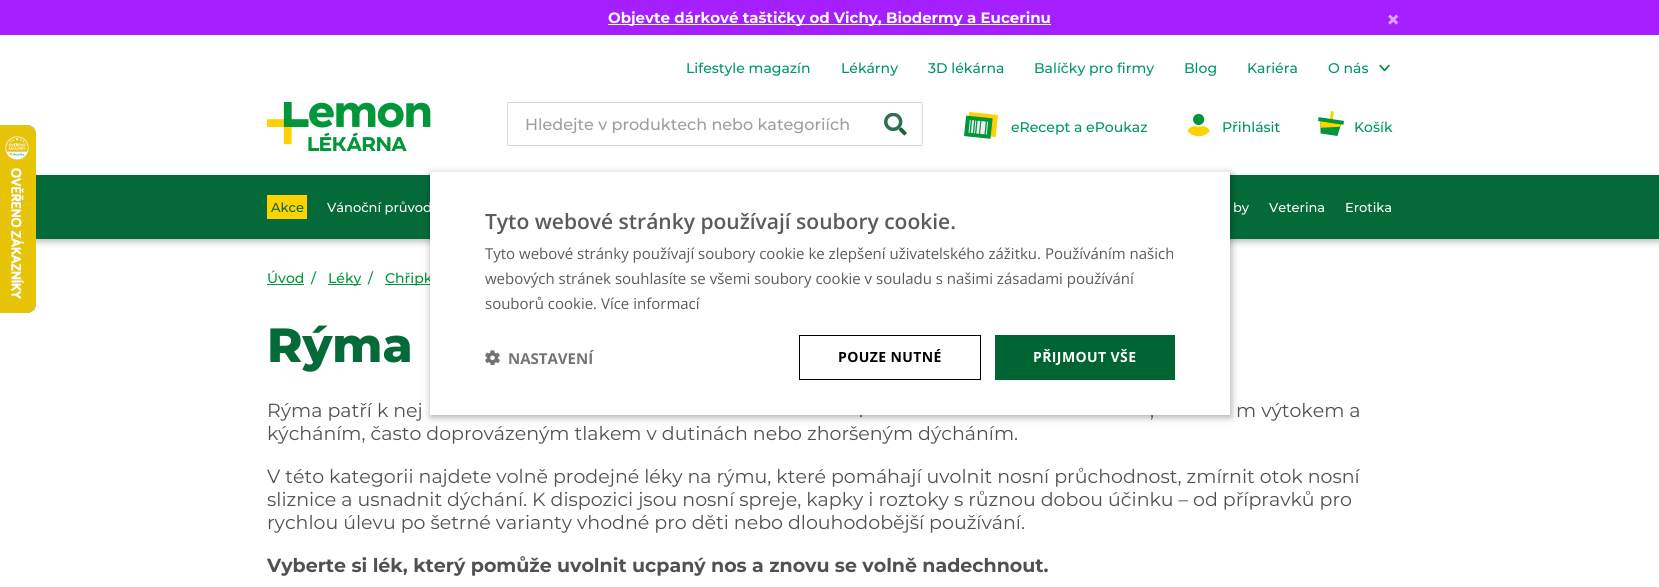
import math
import cairocffi as cairo

surface = cairo.ImageSurface(cairo.FORMAT_RGB24, 1659, 587)
cr = cairo.Context(surface)
options = cairo.FontOptions()
options.set_hint_metrics(cairo.HINT_METRICS_OFF)
options.set_hint_style(cairo.HINT_STYLE_NONE)
cr.set_font_options(options)
cr.set_miter_limit(4)


def use_color(code):
    cr.set_source_rgb(*(v / 255 for v in bytes.fromhex(code[-6:])))


def spaced_text(x, y, s, letter, word):
    cr.move_to(x, y)
    for ch in s:
        cr.show_text(ch)
        cr.rel_move_to(letter + word * (ch == ' '), 0)


def round_rect(x, y, w, h, r):
    cr.new_sub_path()
    for i, (u, v) in enumerate([(x + w - r, y + h - r), (x + r, y + h - r), (x + r, y + r), (x + w - r, y + r)]):
        cr.arc(u, v, r, i * math.pi / 2, (i + 1) * math.pi / 2)
    cr.close_path()


def shadow(x, y, w, h, r, blur, alpha):
    cr.push_group_with_content(cairo.CONTENT_ALPHA)
    cr.set_operator(cairo.OPERATOR_SOURCE)
    for i in range(15, -16, -2):
        e = blur * i / 6
        if min(w, h) + 2 * e > 0:
            cr.set_source_rgba(0, 0, 0, alpha * math.erfc((i - 1) / 8.5) / 2)
            round_rect(x - e, y - e, w + 2 * e, h + 2 * e, max(0, min(r + e + blur * .6, min(w, h) / 2 + e)))
            cr.fill()
    cr.mask(cr.pop_group())


def picture(path, x, y, w, h):
    cr.save()
    cr.set_source_surface(cairo.ImageSurface.create_from_png(path), x, y)
    cr.rectangle(x, y, w, h)
    cr.fill()
    cr.restore()


use_color("#ffffff")
cr.paint()
use_color("#a51fff")
cr.rectangle(0, 0, 1659, 35)
cr.fill()
use_color("#ffffff")
cr.rectangle(608, 24, 443, 1)
cr.fill()
cr.select_font_face("Montserrat", cairo.FONT_SLANT_NORMAL, cairo.FONT_WEIGHT_BOLD)
cr.set_font_size(15)
cr.move_to(608, 23)
cr.show_text("Objevte dárkové taštičky od Vichy, Biodermy a Eucerinu")
cr.set_font_size(24)
use_color("#dba5ff")
cr.move_to(1386, 28)
cr.show_text("×")
use_color("#000000")
shadow(0, 178, 1659, 64, 0, 3, 0.25)
picture("img1.png", 0, 125, 36, 188)
cr.select_font_face("Montserrat Medium")
cr.set_font_size(14)
use_color("#00965f")
cr.move_to(686, 73)
cr.show_text("Lifestyle magazín")
cr.move_to(841, 73)
cr.show_text("Lékárny")
cr.move_to(928, 73)
cr.show_text("3D lékárna")
cr.move_to(1034, 73)
cr.show_text("Balíčky pro firmy")
cr.move_to(1184, 73)
cr.show_text("Blog")
cr.move_to(1247, 73)
cr.show_text("Kariéra")
cr.move_to(1328, 73)
cr.show_text("O nás")
picture("img2.png", 1379, 64, 11, 8)
picture("img3.png", 267, 102, 164, 49)
round_rect(507.5, 102.5, 415, 43, 1.5)
use_color("#d7d7d7")
cr.set_line_width(1)
cr.stroke()
cr.set_font_size(16)
use_color("#9e9e9e")
cr.move_to(525, 130)
cr.show_text("Hledejte v produktech nebo kategoriích")
picture("img4.png", 884, 113, 23, 23)
picture("img5.png", 964, 112, 34, 27)
cr.set_font_size(14)
use_color("#00965f")
cr.move_to(1011, 132)
cr.show_text("eRecept a ePoukaz")
picture("img6.png", 1187, 113, 23, 24)
cr.move_to(1222, 132)
cr.show_text("Přihlásit")
picture("img7.png", 1318, 111, 26, 25)
cr.move_to(1354, 132)
cr.show_text("Košík")
use_color("#046a38")
cr.rectangle(36, 175, 1623, 64)
cr.fill()
use_color("#ffd100")
cr.rectangle(267, 195, 40, 24)
cr.fill()
cr.set_font_size(13)
use_color("#046a38")
cr.move_to(271, 212)
cr.show_text("Akce")
use_color("#ffffff")
cr.move_to(327, 212)
cr.show_text("Vánoční průvod")
cr.move_to(1233, 212)
cr.show_text("by")
cr.move_to(1269, 212)
cr.show_text("Veterina")
cr.move_to(1345, 212)
cr.show_text("Erotika")
use_color("#009639")
cr.rectangle(385, 284, 45, 1)
cr.fill()
use_color("#000000")
shadow(431, 174, 800, 243, 0, 4, 0.35)
cr.set_font_size(14)
use_color("#009639")
cr.move_to(385, 283)
cr.show_text("Chřipk")
use_color("#ffffff")
cr.rectangle(430, 172, 800, 243)
cr.fill()
cr.select_font_face("Open Sans SemiBold")
cr.set_font_size(21)
use_color("#5b5b5b")
cr.move_to(485, 229)
cr.show_text("Tyto webové stránky používají soubory cookie.")
cr.select_font_face("Open Sans")
cr.set_font_size(15)
cr.move_to(485, 259)
cr.show_text("Tyto webové stránky používají soubory cookie ke zlepšení uživatelského zážitku. Používáním našich")
cr.move_to(485, 284)
cr.show_text("webových stránek souhlasíte se všemi soubory cookie v souladu s našimi zásadami používání")
cr.move_to(485, 309)
cr.show_text("souborů cookie. Více informací")
picture("img8.png", 485, 350, 15, 15)
cr.select_font_face("Open Sans", cairo.FONT_SLANT_NORMAL, cairo.FONT_WEIGHT_BOLD)
use_color("#747474")
cr.move_to(508, 364)
cr.show_text("NASTAVENÍ")
cr.rectangle(799.5, 335.5, 181, 44)
use_color("#000000")
cr.stroke()
cr.set_font_size(14)
spaced_text(838, 362, "POUZE NUTNÉ", 0.4, 0)
use_color("#006433")
cr.rectangle(995, 335, 180, 45)
cr.fill()
use_color("#ffffff")
spaced_text(1033, 362, "PŘIJMOUT VŠE", 0.4, 0)
cr.select_font_face("Montserrat Medium")
use_color("#009639")
cr.move_to(267, 283)
cr.show_text("Úvod")
cr.rectangle(267, 284, 37, 1)
cr.fill()
cr.move_to(311, 283)
cr.show_text("/")
cr.rectangle(328, 284, 33, 1)
cr.fill()
cr.move_to(328, 283)
cr.show_text("Léky")
cr.move_to(368, 283)
cr.show_text("/")
cr.select_font_face("Montserrat ExtraBold")
cr.set_font_size(48)
use_color("#046a38")
cr.move_to(267, 362)
cr.show_text("Rýma")
cr.select_font_face("Montserrat")
cr.set_font_size(19)
use_color("#515151")
cr.move_to(267, 417)
cr.show_text("Rýma patří k nej")
cr.move_to(859, 417)
cr.show_text(".")
cr.move_to(1150, 417)
cr.show_text(",")
cr.move_to(1236, 417)
cr.show_text("m výtokem a")
cr.move_to(267, 440)
cr.show_text("kýcháním, často doprovázeným tlakem v dutinách nebo zhoršeným dýcháním.")
cr.move_to(267, 483)
cr.show_text("V této kategorii najdete volně prodejné léky na rýmu, které pomáhají uvolnit nosní průchodnost, zmírnit otok nosní")
cr.move_to(267, 506)
cr.show_text("sliznice a usnadnit dýchání. K dispozici jsou nosní spreje, kapky i roztoky s různou dobou účinku – od přípravků pro")
cr.move_to(267, 529)
cr.show_text("rychlou úlevu po šetrné varianty vhodné pro děti nebo dlouhodobější používání.")
cr.select_font_face("Montserrat", cairo.FONT_SLANT_NORMAL, cairo.FONT_WEIGHT_BOLD)
cr.move_to(267, 572)
cr.show_text("Vyberte si lék, který pomůže uvolnit ucpaný nos a znovu se volně nadechnout.")
surface.write_to_png("result.png")
